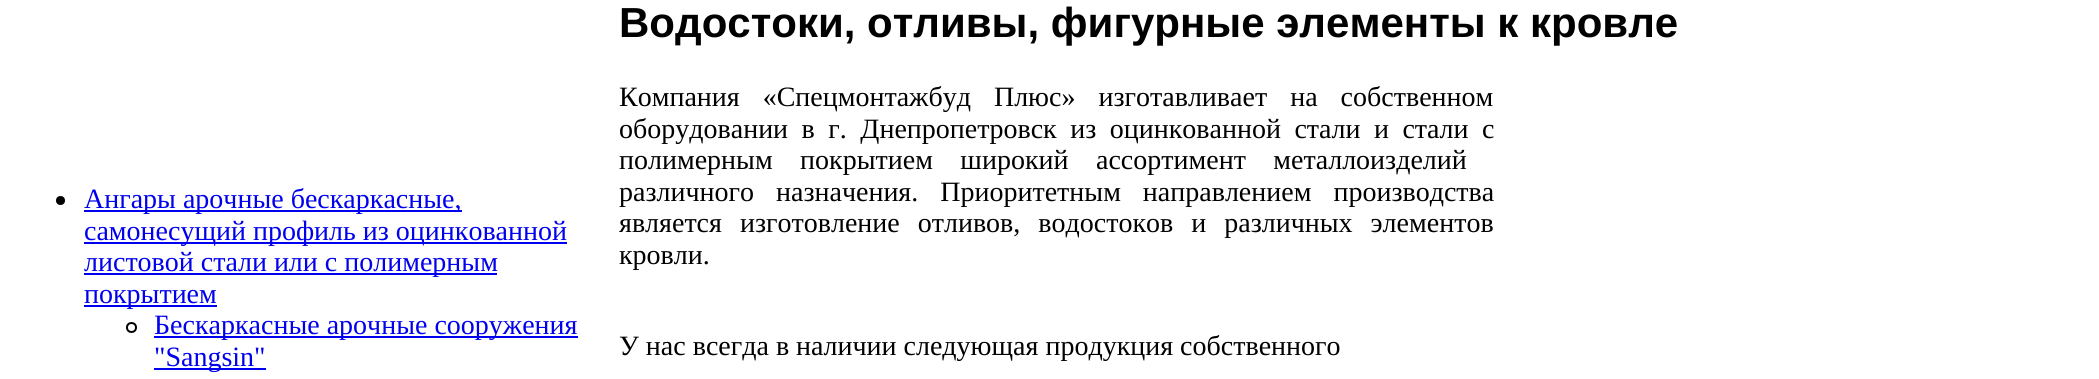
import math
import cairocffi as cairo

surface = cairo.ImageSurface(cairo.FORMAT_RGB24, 2099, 379)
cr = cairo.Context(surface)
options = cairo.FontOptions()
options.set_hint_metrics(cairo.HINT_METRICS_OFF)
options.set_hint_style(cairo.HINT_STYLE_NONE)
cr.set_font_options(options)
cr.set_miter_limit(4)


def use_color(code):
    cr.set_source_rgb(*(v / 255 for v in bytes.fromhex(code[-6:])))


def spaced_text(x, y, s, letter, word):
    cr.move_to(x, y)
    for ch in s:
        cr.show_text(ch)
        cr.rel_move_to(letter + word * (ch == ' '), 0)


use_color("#ffffff")
cr.paint()
use_color("#000000")
cr.arc(60.5, 200.5, 4.5, 0, 2 * math.pi)
cr.fill()
use_color("#0000ee")
cr.rectangle(84, 210, 378, 2)
cr.fill()
cr.select_font_face("Liberation Serif")
cr.set_font_size(28)
cr.move_to(84, 208)
cr.show_text("Ангары арочные бескаркасные,")
cr.rectangle(84, 242, 483, 2)
cr.fill()
cr.move_to(84, 240)
cr.show_text("самонесущий профиль из оцинкованной")
cr.rectangle(84, 273, 413, 2)
cr.fill()
cr.move_to(84, 271)
cr.show_text("листовой стали или с полимерным")
cr.rectangle(84, 305, 133, 2)
cr.fill()
cr.move_to(84, 303)
cr.show_text("покрытием")
cr.new_path()
cr.arc(131.5, 327.5, 4.5, 0, 2 * math.pi)
use_color("#000000")
cr.stroke()
use_color("#0000ee")
cr.rectangle(154, 336, 424, 2)
cr.fill()
cr.move_to(154, 334)
cr.show_text("Бескаркасные арочные сооружения")
cr.rectangle(154, 368, 112, 2)
cr.fill()
cr.move_to(154, 366)
cr.show_text("\"Sangsin\"")
cr.select_font_face("Liberation Sans", cairo.FONT_SLANT_NORMAL, cairo.FONT_WEIGHT_BOLD)
cr.set_font_size(42)
use_color("#000000")
cr.move_to(619, 37)
cr.show_text("Водостоки, отливы, фигурные элементы к кровле")
cr.select_font_face("Liberation Serif")
cr.set_font_size(28)
spaced_text(619, 106, "Компания «Спецмонтажбуд Плюс» изготавливает на собственном", 0, 16)
spaced_text(619, 138, "оборудовании в г. Днепропетровск из оцинкованной стали и стали с", 0, 6.5)
spaced_text(619, 169, "полимерным покрытием широкий ассортимент металлоизделий", 0, 20.5)
spaced_text(619, 201, "различного назначения. Приоритетным направлением производства", 0, 15)
spaced_text(619, 232, "является изготовление отливов, водостоков и различных элементов", 0, 11)
cr.move_to(619, 264)
cr.show_text("кровли.")
cr.move_to(619, 355)
cr.show_text("У нас всегда в наличии следующая продукция собственного")
surface.write_to_png("result.png")
